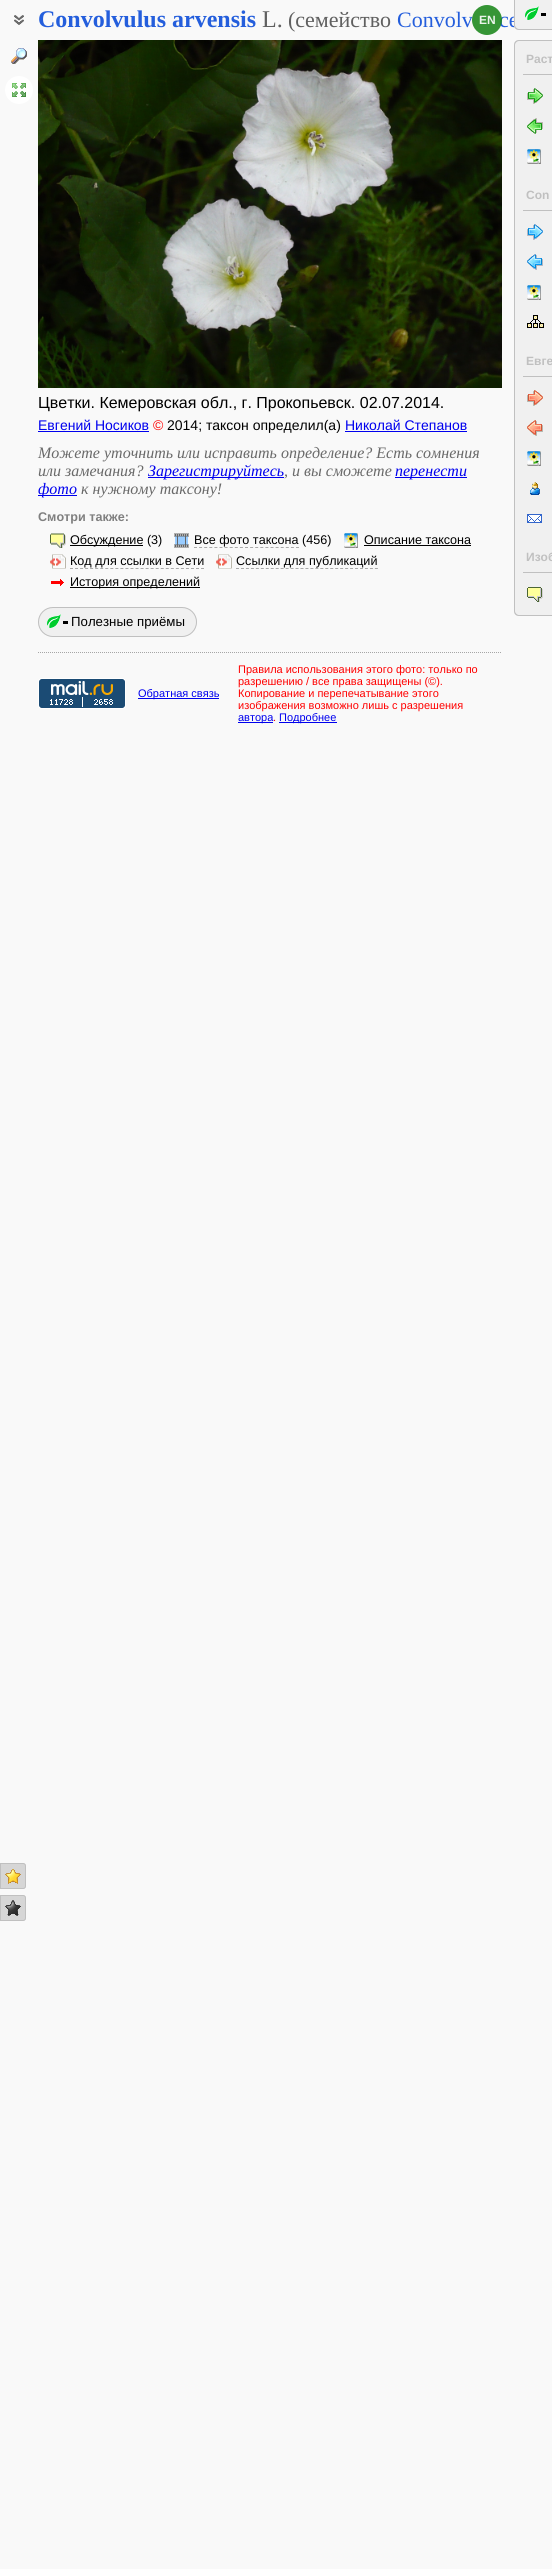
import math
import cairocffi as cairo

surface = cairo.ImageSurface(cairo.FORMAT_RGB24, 552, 2569)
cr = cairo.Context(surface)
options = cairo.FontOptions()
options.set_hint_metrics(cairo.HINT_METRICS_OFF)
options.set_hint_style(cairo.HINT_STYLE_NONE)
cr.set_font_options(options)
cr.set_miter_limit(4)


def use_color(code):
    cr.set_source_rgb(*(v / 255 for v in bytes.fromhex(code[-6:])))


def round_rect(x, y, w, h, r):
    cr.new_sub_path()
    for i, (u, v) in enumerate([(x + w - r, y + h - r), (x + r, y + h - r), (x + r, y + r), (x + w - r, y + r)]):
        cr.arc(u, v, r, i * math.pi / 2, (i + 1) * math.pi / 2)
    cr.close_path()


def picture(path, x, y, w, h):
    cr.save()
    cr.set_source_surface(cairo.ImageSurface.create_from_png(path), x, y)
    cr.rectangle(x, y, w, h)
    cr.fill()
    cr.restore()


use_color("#f9f9f9")
cr.paint()
picture("img1.png", 14, 15, 10, 10)
cr.select_font_face("Liberation Serif", cairo.FONT_SLANT_NORMAL, cairo.FONT_WEIGHT_BOLD)
cr.set_font_size(24)
use_color("#245edc")
cr.move_to(38, 27)
cr.show_text("Convolvulus arvensis")
cr.select_font_face("Liberation Serif")
use_color("#606060")
cr.move_to(262, 27)
cr.show_text("L.")
cr.set_font_size(22)
cr.move_to(288, 27)
cr.show_text("(семейство")
use_color("#245edc")
cr.move_to(397, 27)
cr.show_text("Convolv")
cr.move_to(499, 27)
cr.show_text("ce")
cr.set_source_rgba(0.133, 0.545, 0.133, 0.9)
cr.new_path()
cr.arc(487, 20, 15, 0, 2 * math.pi)
cr.fill()
cr.select_font_face("Liberation Sans", cairo.FONT_SLANT_NORMAL, cairo.FONT_WEIGHT_BOLD)
cr.set_font_size(12)
use_color("#ebf4eb")
cr.move_to(479, 24)
cr.show_text("EN")
picture("img2.png", 11, 48, 16, 16)
use_color("#ffffff")
cr.arc(19, 90, 14, 0, 2 * math.pi)
cr.fill()
picture("img3.png", 12, 83, 14, 14)
use_color("#d6d6d6")
cr.new_path()
cr.move_to(0, 1863)
cr.line_to(23, 1863)
cr.curve_to(24.5, 1863, 26, 1864.5, 26, 1866)
cr.line_to(26, 1886)
cr.curve_to(26, 1887.5, 24.5, 1889, 23, 1889)
cr.line_to(0, 1889)
cr.close_path()
cr.fill()
picture("img4.png", 5, 1869, 16, 15)
cr.new_path()
cr.move_to(0.5, 1863.5)
cr.line_to(23, 1863.5)
cr.curve_to(24.5, 1863.5, 25.5, 1864.5, 25.5, 1866)
cr.line_to(25.5, 1886)
cr.curve_to(25.5, 1887.5, 24.5, 1888.5, 23, 1888.5)
cr.line_to(0.5, 1888.5)
cr.close_path()
use_color("#c0c0c0")
cr.set_line_width(1)
cr.stroke()
use_color("#d6d6d6")
cr.new_path()
cr.move_to(0, 1895)
cr.line_to(23, 1895)
cr.curve_to(24.5, 1895, 26, 1896.5, 26, 1898)
cr.line_to(26, 1918)
cr.curve_to(26, 1919.5, 24.5, 1921, 23, 1921)
cr.line_to(0, 1921)
cr.close_path()
cr.fill()
picture("img5.png", 5, 1900, 16, 16)
cr.new_path()
cr.move_to(0.5, 1895.5)
cr.line_to(23, 1895.5)
cr.curve_to(24.5, 1895.5, 25.5, 1896.5, 25.5, 1898)
cr.line_to(25.5, 1918)
cr.curve_to(25.5, 1919.5, 24.5, 1920.5, 23, 1920.5)
cr.line_to(0.5, 1920.5)
cr.close_path()
use_color("#c0c0c0")
cr.stroke()
picture("img6.png", 38, 40, 464, 348)
cr.select_font_face("Liberation Sans")
cr.set_font_size(16)
use_color("#000000")
cr.move_to(38, 408)
cr.show_text("Цветки. Кемеровская обл., г. Прокопьевск. 02.07.2014.")
cr.set_font_size(14)
use_color("#0000ee")
cr.move_to(38, 430)
cr.show_text("Евгений Носиков")
cr.rectangle(38, 431, 111, 1)
cr.fill()
use_color("#ff0000")
cr.move_to(153, 430)
cr.show_text("©")
use_color("#000000")
cr.move_to(167, 430)
cr.show_text("2014; таксон определил(а)")
use_color("#0000ee")
cr.move_to(345, 430)
cr.show_text("Николай Степанов")
cr.rectangle(345, 431, 122, 1)
cr.fill()
cr.select_font_face("Liberation Serif", cairo.FONT_SLANT_ITALIC)
cr.set_font_size(16)
use_color("#696969")
cr.move_to(38, 458)
cr.show_text("Можете уточнить или исправить определение? Есть сомнения")
cr.move_to(38, 476)
cr.show_text("или замечания?")
use_color("#0000ee")
cr.rectangle(148, 477, 136, 1)
cr.fill()
cr.move_to(148, 476)
cr.show_text("Зарегистрируйтесь")
use_color("#696969")
cr.move_to(284, 476)
cr.show_text(", и вы сможете")
use_color("#0000ee")
cr.rectangle(395, 477, 72, 1)
cr.fill()
cr.move_to(395, 476)
cr.show_text("перенести")
cr.rectangle(38, 495, 39, 1)
cr.fill()
cr.move_to(38, 494)
cr.show_text("фото")
use_color("#696969")
cr.move_to(81, 494)
cr.show_text("к нужному таксону!")
cr.select_font_face("Liberation Sans", cairo.FONT_SLANT_NORMAL, cairo.FONT_WEIGHT_BOLD)
cr.set_font_size(12.6)
use_color("#808080")
cr.move_to(38, 521)
cr.show_text("Смотри также:")
picture("img7.png", 50, 533, 16, 15)
use_color("#000000")
cr.rectangle(70, 545, 73, 1)
cr.fill()
cr.select_font_face("Liberation Sans")
cr.move_to(70, 544)
cr.show_text("Обсуждение (3)")
picture("img8.png", 174, 533, 15, 15)
cr.move_to(194, 544)
cr.show_text("Все фото таксона (456)")
cr.new_path()
cr.move_to(194, 547.5)
cr.line_to(299, 547.5)
use_color("#a9a9a9")
cr.set_dash([3, 2.1])
cr.stroke()
picture("img9.png", 344, 533, 14, 15)
use_color("#000000")
cr.move_to(364, 544)
cr.show_text("Описание таксона")
cr.rectangle(364, 545, 107, 1)
cr.fill()
picture("img10.png", 50, 554, 16, 15)
cr.move_to(70, 565)
cr.show_text("Код для ссылки в Сети")
cr.new_path()
cr.move_to(70, 568.5)
cr.line_to(204, 568.5)
use_color("#a9a9a9")
cr.set_dash([3, 2.04])
cr.stroke()
picture("img10.png", 216, 554, 16, 15)
use_color("#000000")
cr.move_to(236, 565)
cr.show_text("Ссылки для публикаций")
cr.new_path()
cr.move_to(236, 568.5)
cr.line_to(378, 568.5)
use_color("#a9a9a9")
cr.set_dash([3, 1.96])
cr.stroke()
picture("img11.png", 51, 579, 13, 7)
use_color("#000000")
cr.rectangle(70, 587, 130, 1)
cr.fill()
cr.move_to(70, 586)
cr.show_text("История определений")
use_color("#f0f0f0")
round_rect(38, 607, 159, 30, 15)
cr.fill()
use_color("#000000")
cr.rectangle(63, 621, 5, 3)
cr.fill()
round_rect(38.5, 607.5, 158, 29, 14.5)
use_color("#c0c0c0")
cr.set_dash([])
cr.stroke()
picture("img12.png", 47, 614, 14, 14)
cr.set_font_size(13.25)
use_color("#000000")
cr.move_to(71, 626)
cr.show_text("Полезные приёмы")
use_color("#f0f0f0")
cr.new_path()
cr.move_to(514, 0)
cr.line_to(552, 0)
cr.line_to(552, 30)
cr.line_to(519, 30)
cr.curve_to(516, 30, 514, 28, 514, 25)
cr.close_path()
cr.fill()
picture("img12.png", 525, 6, 14, 14)
use_color("#c0c0c0")
cr.set_fill_rule(cairo.FILL_RULE_EVEN_ODD)
cr.new_path()
cr.move_to(514, 0)
cr.line_to(552, 0)
cr.line_to(552, 30)
cr.line_to(519, 30)
cr.curve_to(516, 30, 514, 28, 514, 25)
cr.close_path()
cr.move_to(515, 0)
cr.line_to(552, 0)
cr.line_to(552, 29)
cr.line_to(519, 29)
cr.curve_to(517, 29, 515, 27, 515, 25)
cr.close_path()
cr.fill()
use_color("#000000")
cr.rectangle(541, 13, 5, 3)
cr.fill()
use_color("#f0f0f0")
cr.new_path()
cr.move_to(519, 40)
cr.line_to(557, 40)
cr.line_to(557, 616)
cr.line_to(519, 616)
cr.curve_to(516, 616, 514, 614, 514, 611)
cr.line_to(514, 45)
cr.curve_to(514, 42, 516, 40, 519, 40)
cr.close_path()
cr.fill()
use_color("#c0c0c0")
cr.new_path()
cr.move_to(519, 40)
cr.line_to(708, 40)
cr.line_to(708, 616)
cr.line_to(519, 616)
cr.curve_to(516, 616, 514, 614, 514, 611)
cr.line_to(514, 45)
cr.curve_to(514, 42, 516, 40, 519, 40)
cr.close_path()
cr.move_to(519, 41)
cr.line_to(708, 41)
cr.line_to(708, 615)
cr.line_to(519, 615)
cr.curve_to(517, 615, 515, 613, 515, 611)
cr.line_to(515, 45)
cr.curve_to(515, 43, 517, 41, 519, 41)
cr.close_path()
cr.fill()
cr.rectangle(523, 74, 29, 1)
cr.fill()
cr.select_font_face("Liberation Sans", cairo.FONT_SLANT_NORMAL, cairo.FONT_WEIGHT_BOLD)
cr.set_font_size(12)
cr.move_to(526, 63)
cr.show_text("Раст")
picture("img13.png", 527, 88, 16, 16)
picture("img14.png", 527, 118, 16, 16)
picture("img9.png", 527, 149, 14, 15)
cr.rectangle(523, 210, 29, 1)
cr.fill()
cr.move_to(526, 199)
cr.show_text("Con")
picture("img15.png", 527, 224, 16, 16)
picture("img16.png", 527, 254, 16, 16)
picture("img9.png", 527, 285, 14, 15)
picture("img17.png", 527, 315, 17, 13)
cr.rectangle(523, 376, 29, 1)
cr.fill()
cr.move_to(526, 365)
cr.show_text("Евге")
picture("img18.png", 527, 390, 16, 16)
picture("img19.png", 527, 420, 16, 16)
picture("img9.png", 527, 451, 14, 15)
picture("img20.png", 530, 482, 10, 13)
picture("img21.png", 527, 514, 15, 9)
cr.rectangle(523, 572, 29, 1)
cr.fill()
cr.move_to(526, 561)
cr.show_text("Изоб")
picture("img22.png", 527, 587, 16, 15)
cr.new_path()
cr.move_to(38, 652.5)
cr.line_to(502, 652.5)
use_color("#a6a6a6")
cr.set_dash([1, 1])
cr.stroke()
picture("img23.png", 38, 678, 88, 31)
use_color("#0000ee")
cr.rectangle(138, 698, 81, 1)
cr.fill()
cr.select_font_face("Liberation Sans")
cr.set_font_size(11)
cr.move_to(138, 697)
cr.show_text("Обратная связь")
use_color("#ff0000")
cr.move_to(238, 673)
cr.show_text("Правила использования этого фото: только по")
cr.move_to(238, 685)
cr.show_text("разрешению / все права защищены (©).")
cr.move_to(238, 697)
cr.show_text("Копирование и перепечатывание этого")
cr.move_to(238, 709)
cr.show_text("изображения возможно лишь с разрешения")
use_color("#0000ee")
cr.rectangle(238, 722, 35, 1)
cr.fill()
cr.move_to(238, 721)
cr.show_text("автора")
use_color("#ff0000")
cr.move_to(273, 721)
cr.show_text(".")
use_color("#0000ee")
cr.rectangle(279, 722, 58, 1)
cr.fill()
cr.move_to(279, 721)
cr.show_text("Подробнее")
surface.write_to_png("result.png")
